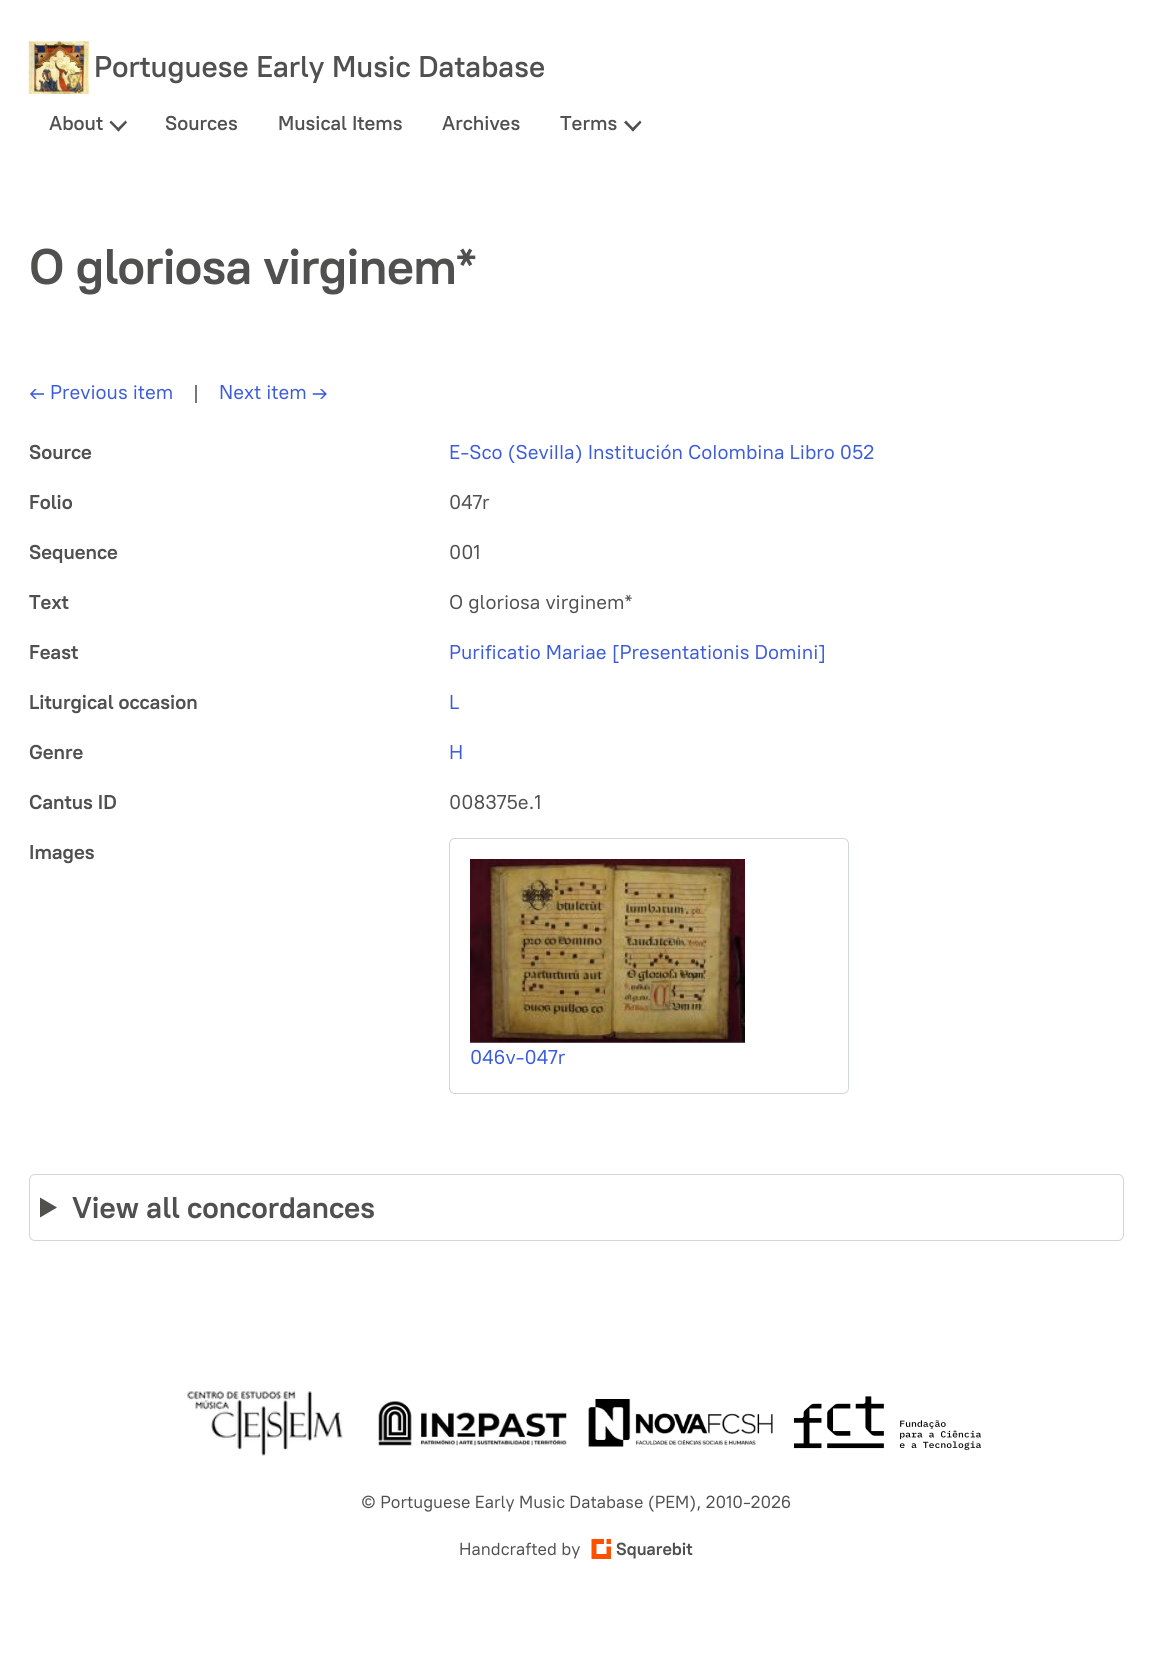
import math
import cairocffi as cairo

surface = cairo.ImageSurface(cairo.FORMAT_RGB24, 1152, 1677)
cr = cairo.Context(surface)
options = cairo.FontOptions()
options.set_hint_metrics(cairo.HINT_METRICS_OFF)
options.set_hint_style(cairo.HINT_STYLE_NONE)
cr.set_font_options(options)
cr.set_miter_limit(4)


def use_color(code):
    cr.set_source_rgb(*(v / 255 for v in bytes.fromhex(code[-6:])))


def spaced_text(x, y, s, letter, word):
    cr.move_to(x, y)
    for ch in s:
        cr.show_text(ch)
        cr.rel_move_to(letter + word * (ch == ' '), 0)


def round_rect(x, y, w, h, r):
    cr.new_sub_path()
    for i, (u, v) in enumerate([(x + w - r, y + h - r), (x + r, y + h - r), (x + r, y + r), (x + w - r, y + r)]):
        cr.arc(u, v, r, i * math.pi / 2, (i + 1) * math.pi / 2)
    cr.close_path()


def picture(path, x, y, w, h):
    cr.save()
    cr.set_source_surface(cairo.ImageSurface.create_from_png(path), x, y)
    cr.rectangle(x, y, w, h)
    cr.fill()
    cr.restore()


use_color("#ffffff")
cr.paint()
picture("img1.png", 28, 41, 61, 53)
cr.select_font_face("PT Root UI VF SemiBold")
cr.set_font_size(30)
use_color("#50514f")
cr.move_to(94, 77)
cr.show_text("Portuguese Early Music Database")
cr.set_font_size(20)
cr.move_to(49, 130)
cr.show_text("About")
cr.new_path()
cr.move_to(118.5, 131.5)
cr.line_to(109.5, 122.5)
cr.line_to(111, 120.5)
cr.line_to(120, 129.5)
cr.close_path()
cr.fill()
cr.new_path()
cr.move_to(118.5, 131.5)
cr.line_to(116.5, 129.5)
cr.line_to(125.5, 120.5)
cr.line_to(127, 122.5)
cr.close_path()
cr.fill()
cr.move_to(165, 130)
cr.show_text("Sources")
cr.move_to(278, 130)
cr.show_text("Musical Items")
cr.move_to(442, 130)
cr.show_text("Archives")
cr.move_to(560, 130)
cr.show_text("Terms")
cr.new_path()
cr.move_to(633, 131.5)
cr.line_to(624, 122.5)
cr.line_to(626, 120.5)
cr.line_to(634.5, 129.5)
cr.close_path()
cr.fill()
cr.new_path()
cr.move_to(633, 131.5)
cr.line_to(631, 129.5)
cr.line_to(640, 120.5)
cr.line_to(641.5, 122.5)
cr.close_path()
cr.fill()
cr.select_font_face("PT Root UI VF", cairo.FONT_SLANT_NORMAL, cairo.FONT_WEIGHT_BOLD)
cr.set_font_size(50)
spaced_text(29, 284, "O gloriosa virginem*", -0.6, 0)
cr.select_font_face("PT Root UI VF")
cr.set_font_size(20)
use_color("#3b5bdb")
cr.move_to(29, 399)
cr.show_text("← Previous item")
use_color("#50514f")
cr.move_to(193, 399)
cr.show_text("|")
use_color("#3b5bdb")
cr.move_to(219, 399)
cr.show_text("Next item →")
cr.select_font_face("PT Root UI VF", cairo.FONT_SLANT_NORMAL, cairo.FONT_WEIGHT_BOLD)
use_color("#50514f")
cr.move_to(29, 459)
cr.show_text("Source")
cr.select_font_face("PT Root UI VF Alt")
use_color("#3b5bdb")
cr.move_to(449, 459)
cr.show_text("E-Sco (Sevilla) Institución Colombina Libro 052")
cr.select_font_face("PT Root UI VF", cairo.FONT_SLANT_NORMAL, cairo.FONT_WEIGHT_BOLD)
use_color("#50514f")
cr.move_to(29, 509)
cr.show_text("Folio")
cr.select_font_face("PT Root UI VF")
cr.move_to(449, 509)
cr.show_text("047r")
cr.select_font_face("PT Root UI VF", cairo.FONT_SLANT_NORMAL, cairo.FONT_WEIGHT_BOLD)
cr.move_to(29, 559)
cr.show_text("Sequence")
cr.select_font_face("PT Root UI VF")
cr.move_to(449, 559)
cr.show_text("001")
cr.select_font_face("PT Root UI VF", cairo.FONT_SLANT_NORMAL, cairo.FONT_WEIGHT_BOLD)
cr.move_to(29, 609)
cr.show_text("Text")
cr.select_font_face("PT Root UI VF")
cr.move_to(449, 609)
cr.show_text("O gloriosa virginem*")
cr.select_font_face("PT Root UI VF", cairo.FONT_SLANT_NORMAL, cairo.FONT_WEIGHT_BOLD)
cr.move_to(29, 659)
cr.show_text("Feast")
cr.select_font_face("PT Root UI VF")
use_color("#3b5bdb")
cr.move_to(449, 659)
cr.show_text("Purificatio Mariae [Presentationis Domini]")
cr.select_font_face("PT Root UI VF", cairo.FONT_SLANT_NORMAL, cairo.FONT_WEIGHT_BOLD)
use_color("#50514f")
cr.move_to(29, 709)
cr.show_text("Liturgical occasion")
cr.select_font_face("PT Root UI VF")
use_color("#3b5bdb")
cr.move_to(449, 709)
cr.show_text("L")
cr.select_font_face("PT Root UI VF", cairo.FONT_SLANT_NORMAL, cairo.FONT_WEIGHT_BOLD)
use_color("#50514f")
cr.move_to(29, 759)
cr.show_text("Genre")
cr.select_font_face("PT Root UI VF")
use_color("#3b5bdb")
cr.move_to(449, 759)
cr.show_text("H")
cr.select_font_face("PT Root UI VF", cairo.FONT_SLANT_NORMAL, cairo.FONT_WEIGHT_BOLD)
use_color("#50514f")
cr.move_to(29, 809)
cr.show_text("Cantus ID")
cr.select_font_face("PT Root UI VF")
cr.move_to(449, 809)
cr.show_text("008375e.1")
cr.select_font_face("PT Root UI VF", cairo.FONT_SLANT_NORMAL, cairo.FONT_WEIGHT_BOLD)
cr.move_to(29, 859)
cr.show_text("Images")
round_rect(449.5, 838.5, 399, 255, 5.5)
use_color("#d1d6d8")
cr.set_line_width(1)
cr.stroke()
picture("img2.png", 470, 859, 275, 184)
cr.select_font_face("PT Root UI VF")
use_color("#3b5bdb")
cr.move_to(470, 1064)
cr.show_text("046v-047r")
round_rect(29.5, 1174.5, 1094, 66, 5.5)
use_color("#d1d6d8")
cr.stroke()
use_color("#50514f")
cr.new_path()
cr.move_to(40, 1197.5)
cr.line_to(57, 1207.5)
cr.line_to(40, 1217.5)
cr.close_path()
cr.fill()
cr.select_font_face("PT Root UI VF", cairo.FONT_SLANT_NORMAL, cairo.FONT_WEIGHT_BOLD)
cr.set_font_size(30)
cr.move_to(72, 1218)
cr.show_text("View all concordances")
picture("img3.png", 187, 1389, 156, 67)
picture("img4.png", 378, 1401, 189, 45)
picture("img5.png", 588, 1399, 185, 48)
picture("img6.png", 794, 1396, 187, 54)
cr.select_font_face("PT Root UI VF")
cr.set_font_size(17.5)
cr.move_to(361, 1508)
cr.show_text("© Portuguese Early Music Database (PEM), 2010-2026")
cr.move_to(459, 1555)
cr.show_text("Handcrafted by")
use_color("#ff5000")
cr.set_fill_rule(cairo.FILL_RULE_EVEN_ODD)
cr.new_path()
cr.move_to(591.5, 1539)
cr.line_to(604, 1539)
cr.line_to(604, 1544)
cr.line_to(596.5, 1544)
cr.line_to(596.5, 1554)
cr.line_to(606.5, 1554)
cr.line_to(606.5, 1546.5)
cr.line_to(611, 1546.5)
cr.line_to(611, 1559)
cr.line_to(591.5, 1559)
cr.close_path()
cr.move_to(611, 1539)
cr.line_to(611, 1544)
cr.line_to(606.5, 1544)
cr.line_to(606.5, 1539)
cr.close_path()
cr.fill()
cr.select_font_face("PT Root UI VF", cairo.FONT_SLANT_NORMAL, cairo.FONT_WEIGHT_BOLD)
use_color("#50514f")
cr.move_to(616, 1555)
cr.show_text("Squarebit")
surface.write_to_png("result.png")
